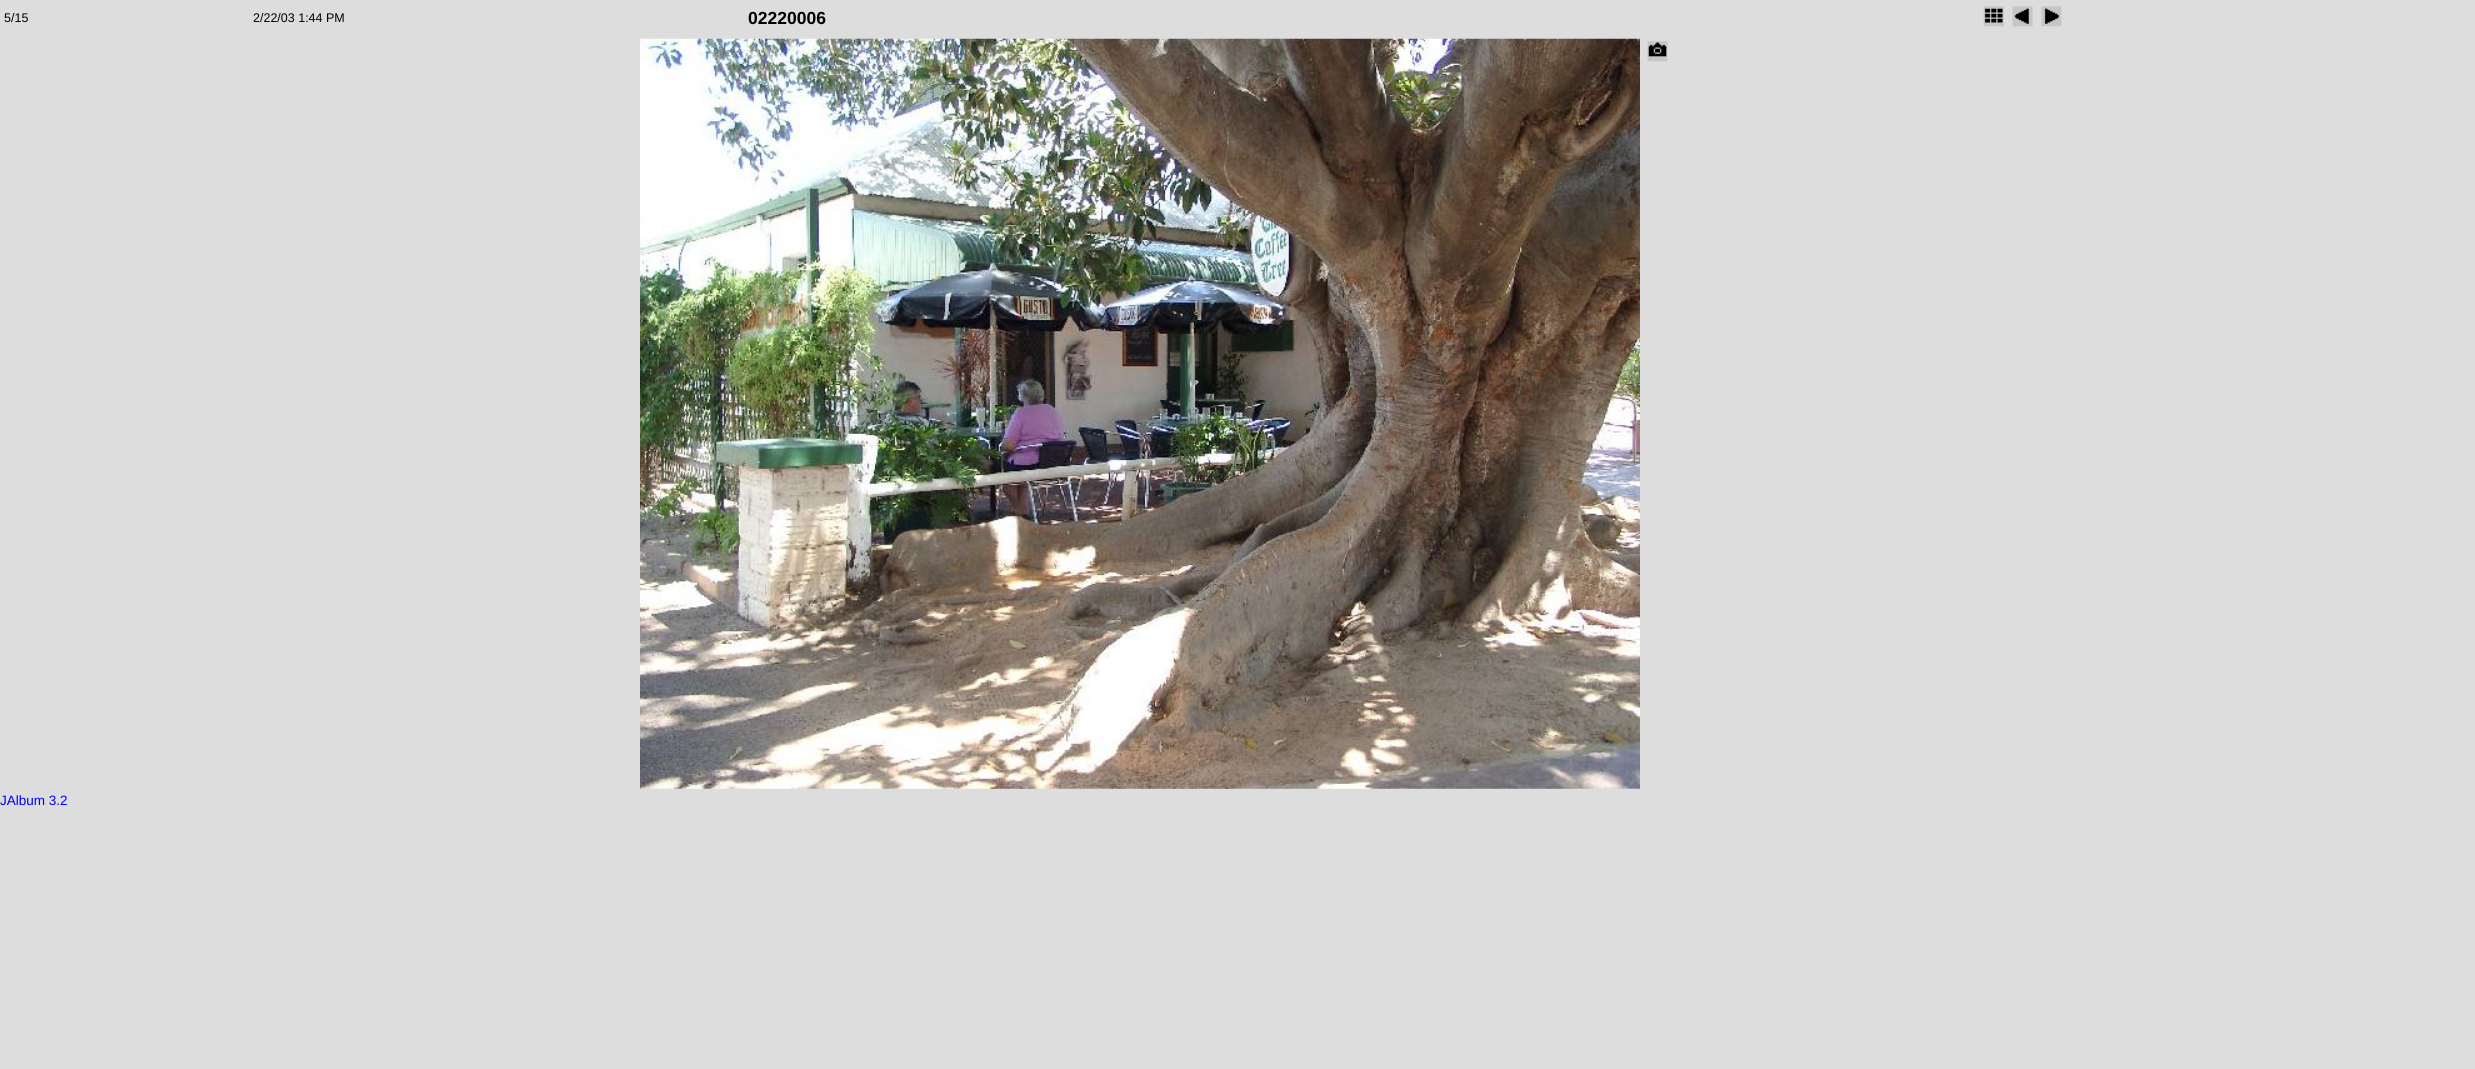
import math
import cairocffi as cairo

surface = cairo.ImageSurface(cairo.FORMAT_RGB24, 2475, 1069)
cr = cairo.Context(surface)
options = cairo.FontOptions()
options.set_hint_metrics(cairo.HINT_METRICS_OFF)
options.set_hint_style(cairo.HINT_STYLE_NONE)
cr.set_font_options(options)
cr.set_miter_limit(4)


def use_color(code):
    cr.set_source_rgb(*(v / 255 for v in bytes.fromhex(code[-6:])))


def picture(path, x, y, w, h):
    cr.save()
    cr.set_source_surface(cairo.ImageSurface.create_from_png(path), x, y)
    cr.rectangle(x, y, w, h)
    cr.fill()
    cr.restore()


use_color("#dddddd")
cr.paint()
cr.select_font_face("Liberation Sans")
cr.set_font_size(12.5)
use_color("#000000")
cr.move_to(4, 22)
cr.show_text("5/15")
cr.move_to(253, 22)
cr.show_text("2/22/03 1:44 PM")
cr.select_font_face("Liberation Sans", cairo.FONT_SLANT_NORMAL, cairo.FONT_WEIGHT_BOLD)
cr.set_font_size(17.5)
cr.move_to(748, 24)
cr.show_text("02220006")
picture("img1.png", 1983, 6, 21, 21)
picture("img2.png", 2012, 6, 21, 21)
picture("img3.png", 2041, 6, 21, 21)
picture("img4.png", 640, 38, 1000, 751)
picture("img5.png", 1647, 41, 21, 21)
cr.select_font_face("Liberation Sans")
cr.set_font_size(13.5)
use_color("#0000ff")
cr.move_to(0, 805)
cr.show_text("JAlbum 3.2")
surface.write_to_png("result.png")
